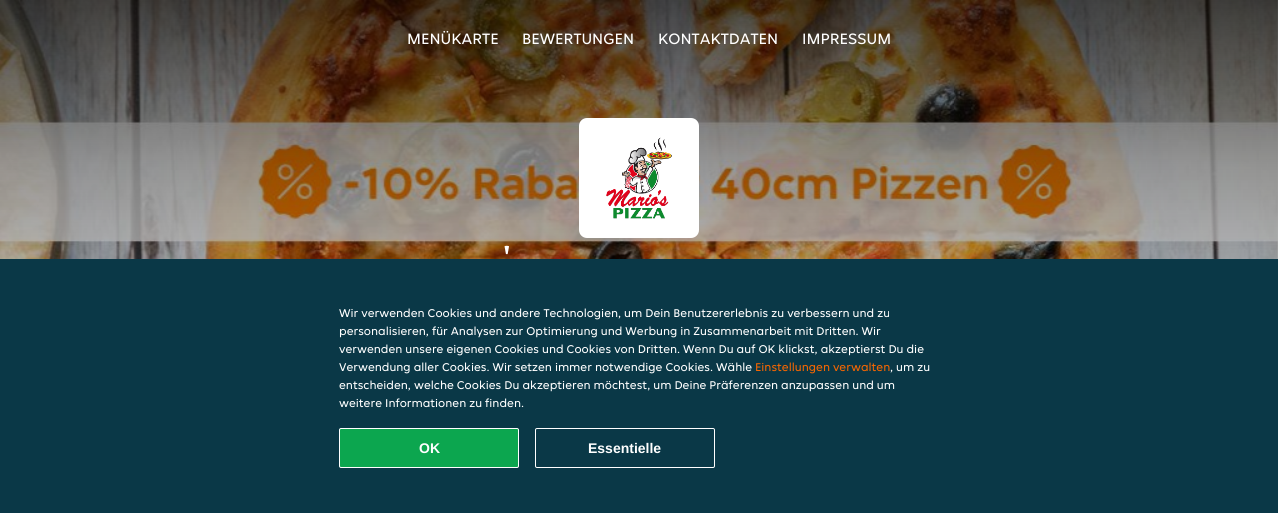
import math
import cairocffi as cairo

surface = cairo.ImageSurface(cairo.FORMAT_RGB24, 1278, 513)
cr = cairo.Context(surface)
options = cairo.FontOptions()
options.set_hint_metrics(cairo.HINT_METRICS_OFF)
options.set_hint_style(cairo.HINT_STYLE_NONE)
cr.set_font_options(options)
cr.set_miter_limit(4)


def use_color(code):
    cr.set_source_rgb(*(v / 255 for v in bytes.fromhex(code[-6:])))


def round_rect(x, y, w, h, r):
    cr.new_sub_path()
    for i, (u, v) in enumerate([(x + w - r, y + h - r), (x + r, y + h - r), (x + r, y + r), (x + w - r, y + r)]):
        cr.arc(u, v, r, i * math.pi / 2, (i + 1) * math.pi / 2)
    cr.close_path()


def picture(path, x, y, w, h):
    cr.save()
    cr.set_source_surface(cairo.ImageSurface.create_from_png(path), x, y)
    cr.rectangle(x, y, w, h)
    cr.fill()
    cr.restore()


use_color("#ffffff")
cr.paint()
picture("img1.png", 0, 0, 1278, 259)
gradient = cairo.LinearGradient(639, 0, 639, 500)
gradient.add_color_stop_rgba(0, 0, 0, 0, 0.7)
gradient.add_color_stop_rgba(0.33, 0, 0, 0, 0.4)
gradient.add_color_stop_rgba(0.67, 0, 0, 0, 0.2)
gradient.add_color_stop_rgba(1, 0, 0, 0, 0)
cr.set_source(gradient)
cr.rectangle(0, 0, 1278, 259)
cr.fill()
cr.select_font_face("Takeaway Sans")
cr.set_font_size(16)
use_color("#ffffff")
cr.move_to(407, 44)
cr.show_text("MENÜKARTE")
cr.move_to(522, 44)
cr.show_text("BEWERTUNGEN")
cr.move_to(658, 44)
cr.show_text("KONTAKTDATEN")
cr.move_to(802, 44)
cr.show_text("IMPRESSUM")
round_rect(579, 118, 120, 120, 8)
cr.fill()
picture("img2.png", 606, 137, 66, 82)
cr.select_font_face("Takeaway Sans", cairo.FONT_SLANT_NORMAL, cairo.FONT_WEIGHT_BOLD)
cr.set_font_size(30)
cr.move_to(503, 267)
cr.show_text("'")
use_color("#0a3847")
cr.rectangle(0, 259, 1278, 254)
cr.fill()
cr.select_font_face("Takeaway Sans")
cr.set_font_size(12)
use_color("#ffffff")
cr.move_to(339, 317)
cr.show_text("Wir verwenden Cookies und andere Technologien, um Dein Benutzererlebnis zu verbessern und zu")
cr.move_to(339, 335)
cr.show_text("personalisieren, für Analysen zur Optimierung und Werbung in Zusammenarbeit mit Dritten. Wir")
cr.move_to(339, 353)
cr.show_text("verwenden unsere eigenen Cookies und Cookies von Dritten. Wenn Du auf OK klickst, akzeptierst Du die")
cr.move_to(339, 371)
cr.show_text("Verwendung aller Cookies. Wir setzen immer notwendige Cookies. Wähle")
use_color("#f86600")
cr.move_to(755, 371)
cr.show_text("Einstellungen verwalten")
use_color("#ffffff")
cr.move_to(890, 371)
cr.show_text(", um zu")
cr.move_to(339, 389)
cr.show_text("entscheiden, welche Cookies Du akzeptieren möchtest, um Deine Präferenzen anzupassen und um")
cr.move_to(339, 407)
cr.show_text("weitere Informationen zu finden.")
use_color("#0ca64f")
round_rect(339.5, 428.5, 179, 39, 1.5)
cr.fill_preserve()
use_color("#ffffff")
cr.set_line_width(1)
cr.stroke()
cr.select_font_face("Liberation Sans", cairo.FONT_SLANT_NORMAL, cairo.FONT_WEIGHT_BOLD)
cr.set_font_size(14)
cr.move_to(419, 453)
cr.show_text("OK")
round_rect(535.5, 428.5, 179, 39, 1.5)
cr.stroke()
cr.move_to(588, 453)
cr.show_text("Essentielle")
surface.write_to_png("result.png")
